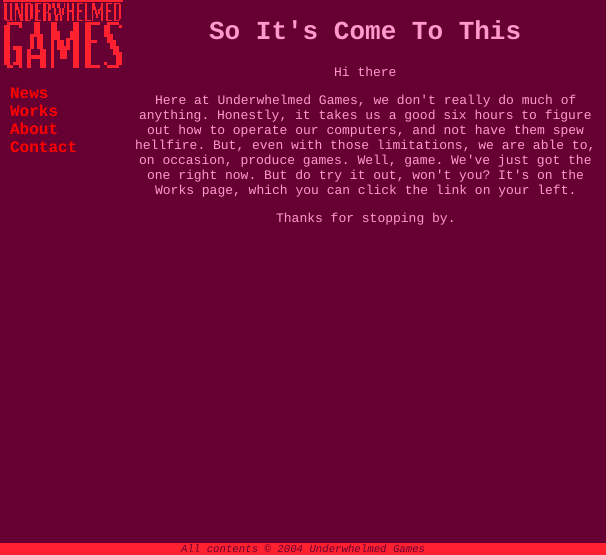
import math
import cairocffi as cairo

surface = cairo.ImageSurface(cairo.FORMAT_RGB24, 606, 555)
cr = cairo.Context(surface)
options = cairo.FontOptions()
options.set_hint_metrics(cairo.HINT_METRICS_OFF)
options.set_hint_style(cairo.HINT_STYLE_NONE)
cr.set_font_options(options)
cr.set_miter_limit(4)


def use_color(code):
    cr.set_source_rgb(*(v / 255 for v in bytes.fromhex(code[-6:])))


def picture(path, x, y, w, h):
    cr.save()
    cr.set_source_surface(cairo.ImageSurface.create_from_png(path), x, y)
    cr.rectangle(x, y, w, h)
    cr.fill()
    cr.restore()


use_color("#660033")
cr.paint()
picture("img1.png", 3, 0, 120, 68)
cr.select_font_face("Liberation Mono", cairo.FONT_SLANT_NORMAL, cairo.FONT_WEIGHT_BOLD)
cr.set_font_size(16)
use_color("#ff0000")
cr.move_to(10, 98)
cr.show_text("News")
cr.move_to(10, 116)
cr.show_text("Works")
cr.move_to(10, 134)
cr.show_text("About")
cr.move_to(10, 152)
cr.show_text("Contact")
cr.set_font_size(26)
use_color("#ff99cc")
cr.move_to(209, 39)
cr.show_text("So It's Come To This")
cr.select_font_face("Liberation Mono")
cr.set_font_size(13)
cr.move_to(334, 76)
cr.show_text("Hi there")
cr.move_to(155, 104)
cr.show_text("Here at Underwhelmed Games, we don't really do much of")
cr.move_to(139, 119)
cr.show_text("anything. Honestly, it takes us a good six hours to figure")
cr.move_to(147, 134)
cr.show_text("out how to operate our computers, and not have them spew")
cr.move_to(135, 149)
cr.show_text("hellfire. But, even with those limitations, we are able to,")
cr.move_to(139, 164)
cr.show_text("on occasion, produce games. Well, game. We've just got the")
cr.move_to(147, 179)
cr.show_text("one right now. But do try it out, won't you? It's on the")
cr.move_to(155, 194)
cr.show_text("Works page, which you can click the link on your left.")
cr.move_to(276, 222)
cr.show_text("Thanks for stopping by.")
use_color("#ff2030")
cr.rectangle(0, 543, 606, 12)
cr.fill()
cr.select_font_face("Liberation Mono", cairo.FONT_SLANT_ITALIC)
cr.set_font_size(10.7)
use_color("#660033")
cr.move_to(181, 552)
cr.show_text("All contents © 2004 Underwhelmed Games")
surface.write_to_png("result.png")
